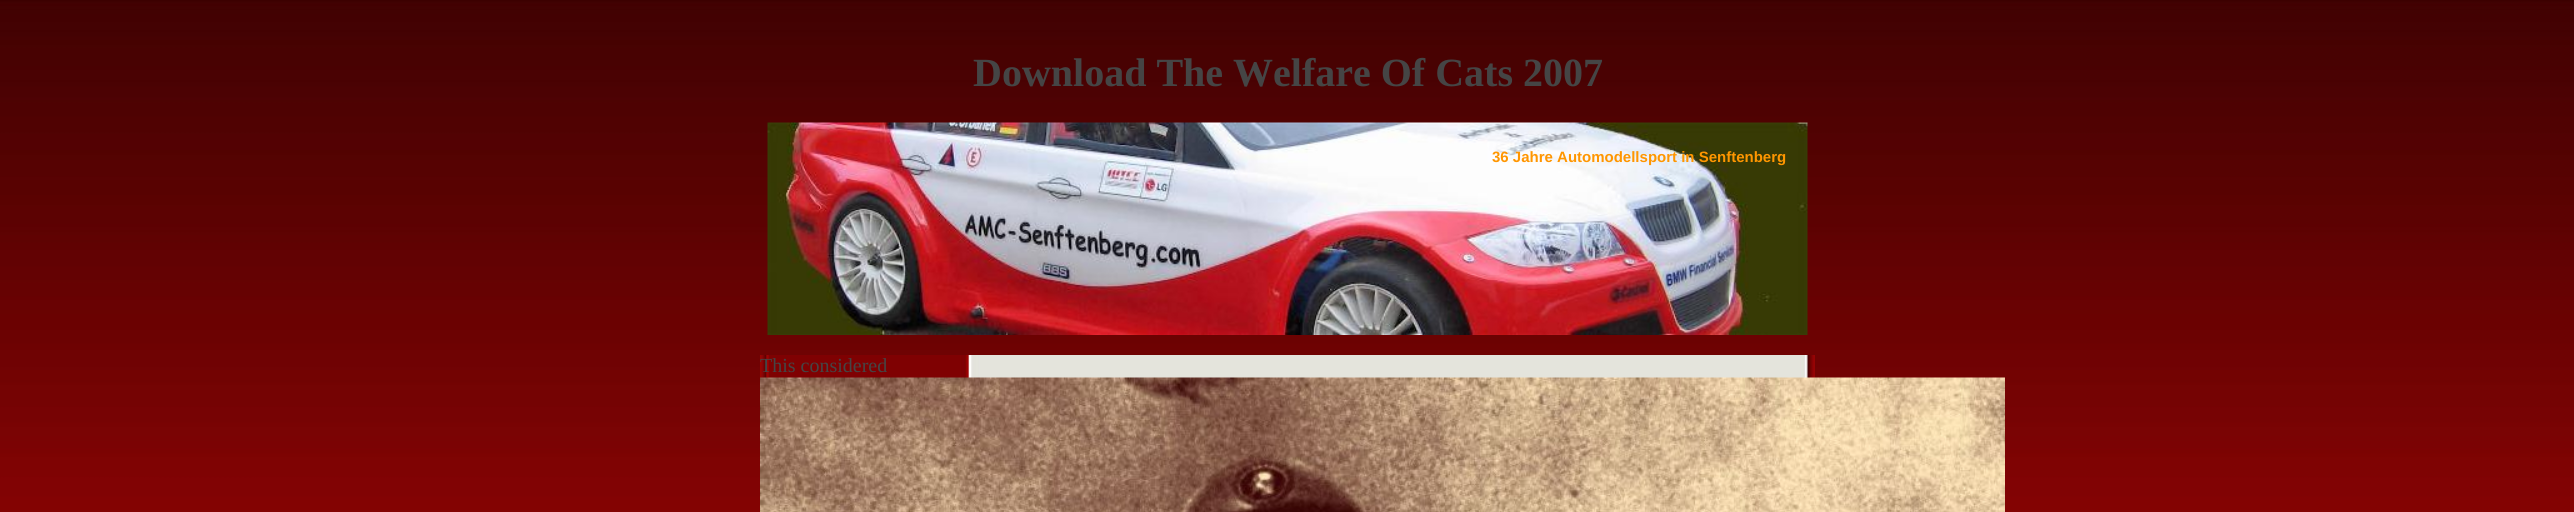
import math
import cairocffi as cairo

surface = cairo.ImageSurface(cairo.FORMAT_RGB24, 2574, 512)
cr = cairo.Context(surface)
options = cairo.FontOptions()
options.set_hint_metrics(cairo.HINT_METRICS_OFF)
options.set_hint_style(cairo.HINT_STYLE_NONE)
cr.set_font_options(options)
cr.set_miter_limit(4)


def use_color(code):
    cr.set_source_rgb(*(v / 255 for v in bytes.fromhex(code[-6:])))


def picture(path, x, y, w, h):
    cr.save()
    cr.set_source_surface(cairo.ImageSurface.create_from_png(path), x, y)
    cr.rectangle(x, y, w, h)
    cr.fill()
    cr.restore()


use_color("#ffffff")
cr.paint()
picture("img1.png", 0, 0, 2574, 512)
cr.select_font_face("Liberation Serif", cairo.FONT_SLANT_NORMAL, cairo.FONT_WEIGHT_BOLD)
cr.set_font_size(40)
use_color("#454545")
cr.move_to(973, 86)
cr.show_text("Download The Welfare Of Cats 2007")
picture("img2.png", 767, 122, 1041, 213)
cr.select_font_face("Liberation Sans", cairo.FONT_SLANT_NORMAL, cairo.FONT_WEIGHT_BOLD)
cr.set_font_size(15)
use_color("#ff9600")
cr.move_to(1492, 162)
cr.show_text("36 Jahre Automodellsport in Senftenberg")
picture("img3.png", 760, 355, 1055, 23)
cr.select_font_face("Liberation Serif")
cr.set_font_size(20)
use_color("#454545")
cr.move_to(760, 372)
cr.show_text("This considered")
picture("img4.png", 760, 377, 1245, 135)
surface.write_to_png("result.png")
